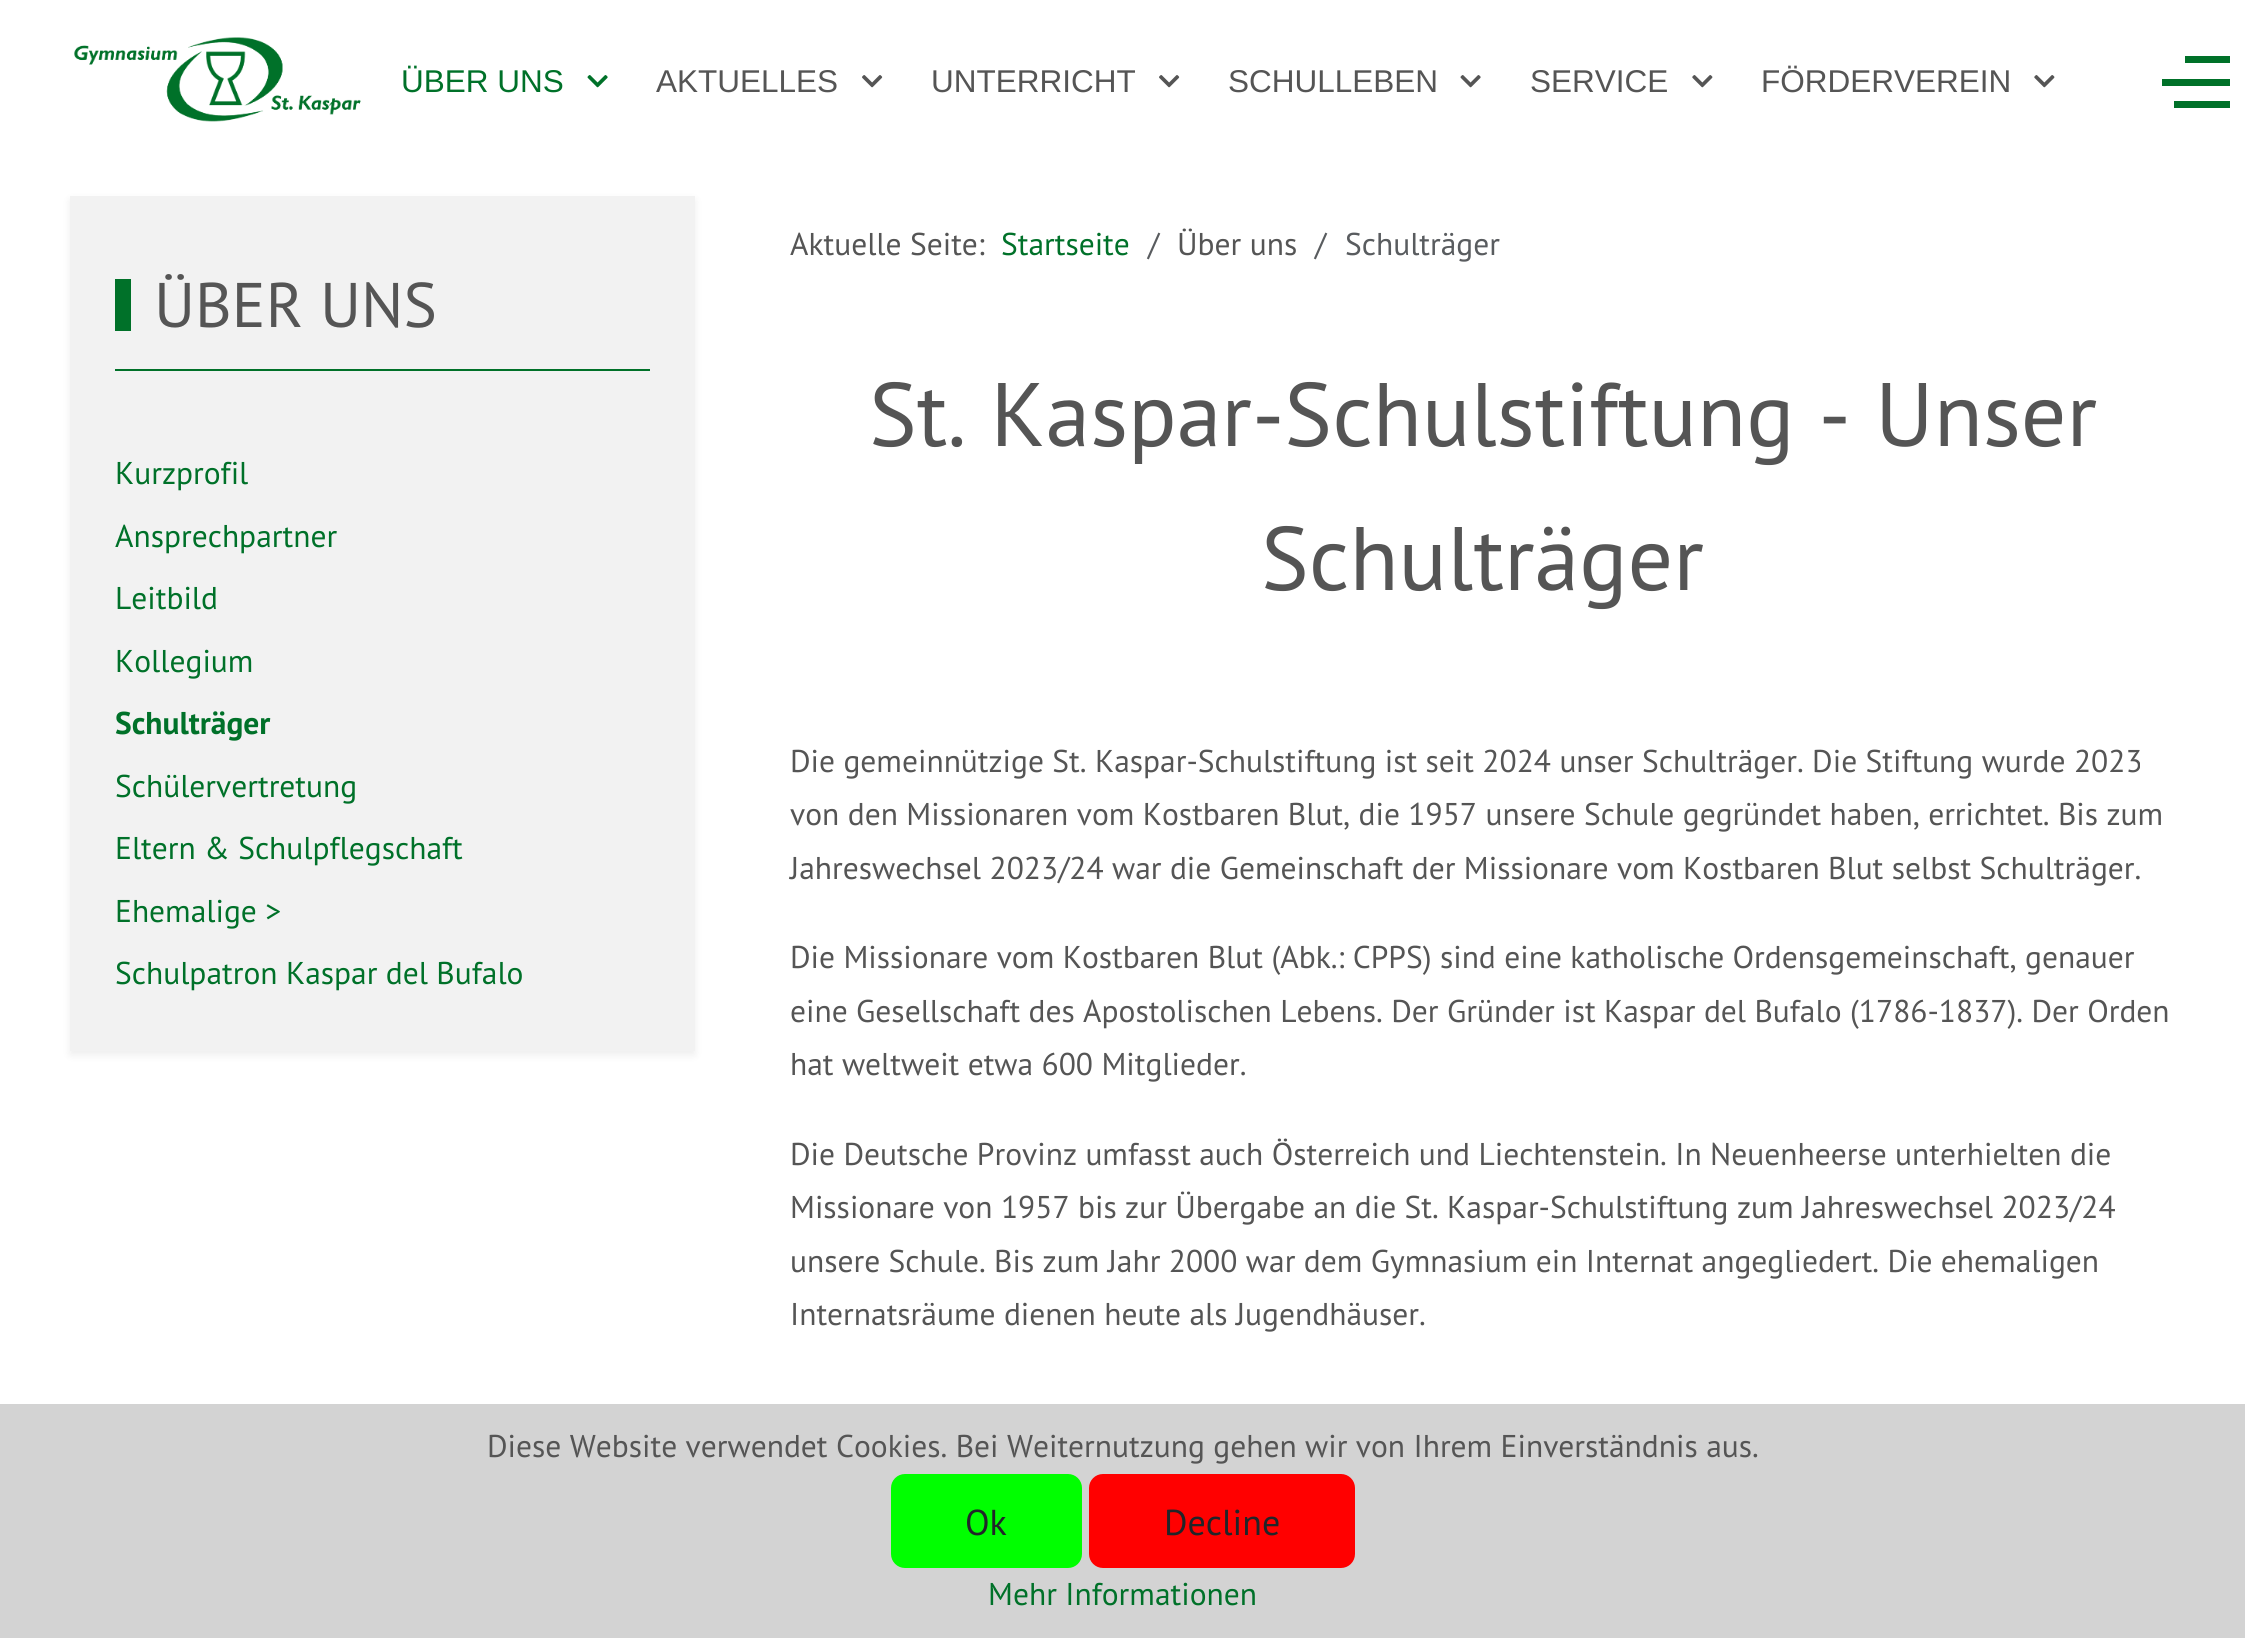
import math
import cairocffi as cairo

surface = cairo.ImageSurface(cairo.FORMAT_RGB24, 2245, 1638)
cr = cairo.Context(surface)
options = cairo.FontOptions()
options.set_hint_metrics(cairo.HINT_METRICS_OFF)
options.set_hint_style(cairo.HINT_STYLE_NONE)
cr.set_font_options(options)
cr.set_miter_limit(4)


def use_color(code):
    cr.set_source_rgb(*(v / 255 for v in bytes.fromhex(code[-6:])))


def round_rect(x, y, w, h, r):
    cr.new_sub_path()
    for i, (u, v) in enumerate([(x + w - r, y + h - r), (x + r, y + h - r), (x + r, y + r), (x + w - r, y + r)]):
        cr.arc(u, v, r, i * math.pi / 2, (i + 1) * math.pi / 2)
    cr.close_path()


def shadow(x, y, w, h, r, blur, alpha):
    cr.push_group_with_content(cairo.CONTENT_ALPHA)
    cr.set_operator(cairo.OPERATOR_SOURCE)
    for i in range(15, -16, -2):
        e = blur * i / 6
        if min(w, h) + 2 * e > 0:
            cr.set_source_rgba(0, 0, 0, alpha * math.erfc((i - 1) / 8.5) / 2)
            round_rect(x - e, y - e, w + 2 * e, h + 2 * e, max(0, min(r + e + blur * .6, min(w, h) / 2 + e)))
            cr.fill()
    cr.mask(cr.pop_group())


def picture(path, x, y, w, h):
    cr.save()
    cr.set_source_surface(cairo.ImageSurface.create_from_png(path), x, y)
    cr.rectangle(x, y, w, h)
    cr.fill()
    cr.restore()


use_color("#ffffff")
cr.paint()
picture("img1.png", 74, 37, 287, 85)
cr.select_font_face("Liberation Sans")
cr.set_font_size(31.5)
use_color("#007129")
cr.move_to(401, 92)
cr.show_text("ÜBER UNS")
picture("img2.png", 587, 75, 21, 13)
use_color("#555555")
cr.move_to(656, 92)
cr.show_text("AKTUELLES")
picture("img3.png", 862, 75, 21, 13)
cr.move_to(931, 92)
cr.show_text("UNTERRICHT")
picture("img3.png", 1159, 75, 21, 13)
cr.move_to(1228, 92)
cr.show_text("SCHULLEBEN")
picture("img4.png", 1460, 75, 21, 13)
cr.move_to(1530, 92)
cr.show_text("SERVICE")
picture("img5.png", 1692, 75, 21, 13)
cr.move_to(1761, 92)
cr.show_text("FÖRDERVEREIN")
picture("img5.png", 2034, 75, 21, 13)
use_color("#007129")
cr.rectangle(2162, 79, 68, 7)
cr.fill()
cr.rectangle(2185, 56, 45, 7)
cr.fill()
cr.rectangle(2174, 101, 56, 7)
cr.fill()
use_color("#000000")
shadow(70, 200, 625, 855, 0, 4.5, 0.07)
use_color("#f2f2f2")
cr.rectangle(70, 196, 625, 855)
cr.fill()
use_color("#007129")
cr.rectangle(115, 369, 535, 2)
cr.fill()
cr.rectangle(115, 279, 16, 52)
cr.fill()
cr.select_font_face("PT Sans")
cr.set_font_size(63)
use_color("#555555")
cr.move_to(154, 327)
cr.show_text("ÜBER UNS")
cr.set_font_size(31.5)
use_color("#007129")
cr.move_to(115, 484)
cr.show_text("Kurzprofil")
cr.move_to(115, 547)
cr.show_text("Ansprechpartner")
cr.move_to(115, 609)
cr.show_text("Leitbild")
cr.move_to(115, 672)
cr.show_text("Kollegium")
cr.select_font_face("PT Sans", cairo.FONT_SLANT_NORMAL, cairo.FONT_WEIGHT_BOLD)
cr.move_to(115, 734)
cr.show_text("Schulträger")
cr.select_font_face("PT Sans")
cr.move_to(115, 797)
cr.show_text("Schülervertretung")
cr.move_to(115, 859)
cr.show_text("Eltern & Schulpflegschaft")
cr.move_to(115, 922)
cr.show_text("Ehemalige >")
cr.move_to(115, 984)
cr.show_text("Schulpatron Kaspar del Bufalo")
use_color("#555555")
cr.move_to(790, 255)
cr.show_text("Aktuelle Seite:")
use_color("#007129")
cr.move_to(1001, 255)
cr.show_text("Startseite")
use_color("#595c5f")
cr.move_to(1148, 255)
cr.show_text("/")
use_color("#555555")
cr.move_to(1177, 255)
cr.show_text("Über uns")
use_color("#595c5f")
cr.move_to(1315, 255)
cr.show_text("/")
cr.move_to(1345, 255)
cr.show_text("Schulträger")
cr.set_font_size(90)
use_color("#555555")
cr.move_to(869, 446)
cr.show_text("St. Kaspar-Schulstiftung - Unser")
cr.move_to(1261, 590)
cr.show_text("Schulträger")
cr.set_font_size(31.5)
cr.move_to(790, 772)
cr.show_text("Die gemeinnützige St. Kaspar-Schulstiftung ist seit 2024 unser Schulträger. Die Stiftung wurde 2023")
cr.move_to(790, 825)
cr.show_text("von den Missionaren vom Kostbaren Blut, die 1957 unsere Schule gegründet haben, errichtet. Bis zum")
cr.move_to(790, 879)
cr.show_text("Jahreswechsel 2023/24 war die Gemeinschaft der Missionare vom Kostbaren Blut selbst Schulträger.")
cr.move_to(790, 968)
cr.show_text("Die Missionare vom Kostbaren Blut (Abk.: CPPS) sind eine katholische Ordensgemeinschaft, genauer")
cr.move_to(790, 1022)
cr.show_text("eine Gesellschaft des Apostolischen Lebens. Der Gründer ist Kaspar del Bufalo (1786-1837). Der Orden")
cr.move_to(790, 1075)
cr.show_text("hat weltweit etwa 600 Mitglieder.")
cr.move_to(790, 1165)
cr.show_text("Die Deutsche Provinz umfasst auch Österreich und Liechtenstein. In Neuenheerse unterhielten die")
cr.move_to(790, 1218)
cr.show_text("Missionare von 1957 bis zur Übergabe an die St. Kaspar-Schulstiftung zum Jahreswechsel 2023/24")
cr.move_to(790, 1272)
cr.show_text("unsere Schule. Bis zum Jahr 2000 war dem Gymnasium ein Internat angegliedert. Die ehemaligen")
cr.move_to(790, 1325)
cr.show_text("Internatsräume dienen heute als Jugendhäuser.")
use_color("#d3d3d3")
cr.rectangle(0, 1404, 2245, 234)
cr.fill()
use_color("#555555")
cr.move_to(487, 1457)
cr.show_text("Diese Website verwendet Cookies. Bei Weiternutzung gehen wir von Ihrem Einverständnis aus.")
use_color("#00ff00")
round_rect(891, 1474, 191, 94, 14)
cr.fill()
cr.set_font_size(36)
use_color("#212529")
cr.move_to(965, 1535)
cr.show_text("Ok")
use_color("#ff0000")
round_rect(1089, 1474, 266, 94, 14)
cr.fill()
use_color("#212529")
cr.move_to(1164, 1535)
cr.show_text("Decline")
cr.set_font_size(31.5)
use_color("#007129")
cr.move_to(988, 1605)
cr.show_text("Mehr Informationen")
surface.write_to_png("result.png")
